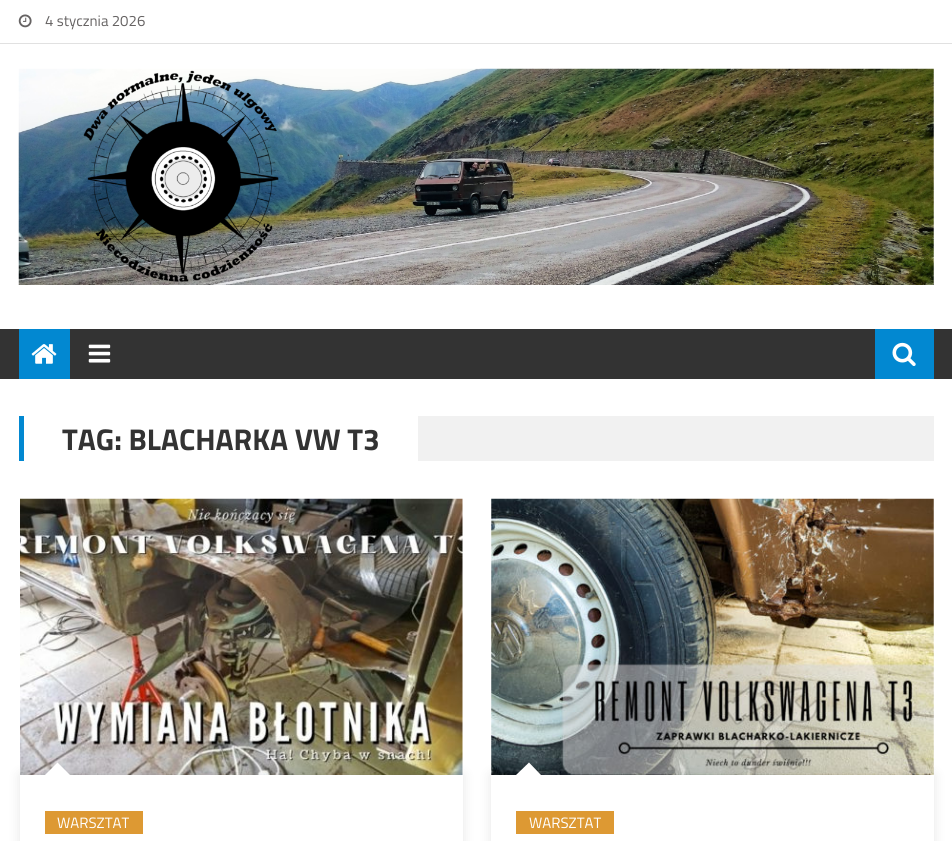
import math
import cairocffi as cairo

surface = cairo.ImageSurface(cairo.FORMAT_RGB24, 952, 841)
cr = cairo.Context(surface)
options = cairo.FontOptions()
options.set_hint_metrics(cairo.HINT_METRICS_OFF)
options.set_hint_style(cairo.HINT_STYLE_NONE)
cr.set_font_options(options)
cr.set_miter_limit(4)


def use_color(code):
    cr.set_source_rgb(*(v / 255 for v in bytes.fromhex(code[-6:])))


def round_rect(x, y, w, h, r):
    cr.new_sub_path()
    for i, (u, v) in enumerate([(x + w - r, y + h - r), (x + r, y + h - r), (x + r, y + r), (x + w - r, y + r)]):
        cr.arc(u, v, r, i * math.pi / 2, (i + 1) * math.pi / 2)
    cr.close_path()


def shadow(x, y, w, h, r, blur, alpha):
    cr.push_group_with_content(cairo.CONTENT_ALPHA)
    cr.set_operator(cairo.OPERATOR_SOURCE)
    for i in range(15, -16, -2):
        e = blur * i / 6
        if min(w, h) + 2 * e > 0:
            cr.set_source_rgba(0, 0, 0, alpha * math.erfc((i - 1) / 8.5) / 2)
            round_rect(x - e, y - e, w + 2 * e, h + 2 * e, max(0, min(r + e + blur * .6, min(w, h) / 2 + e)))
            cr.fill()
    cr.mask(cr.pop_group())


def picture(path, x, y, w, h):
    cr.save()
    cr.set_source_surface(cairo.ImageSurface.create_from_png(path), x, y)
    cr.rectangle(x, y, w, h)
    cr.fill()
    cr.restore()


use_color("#ffffff")
cr.paint()
use_color("#e1e1e1")
cr.rectangle(0, 43, 952, 1)
cr.fill()
picture("img1.png", 18, 14, 14, 14)
cr.select_font_face("Titillium Web")
cr.set_font_size(15)
use_color("#666363")
cr.move_to(45, 26)
cr.show_text("4 stycznia 2026")
picture("img2.png", 18, 68, 916, 217)
use_color("#333333")
cr.rectangle(0, 329, 952, 50)
cr.fill()
use_color("#0288d1")
cr.rectangle(19, 329, 51, 50)
cr.fill()
picture("img3.png", 31, 344, 26, 20)
picture("img4.png", 88, 344, 23, 19)
cr.rectangle(875, 329, 59, 50)
cr.fill()
picture("img5.png", 892, 342, 24, 24)
use_color("#f1f1f1")
cr.rectangle(418, 416, 516, 45)
cr.fill()
use_color("#0288d1")
cr.rectangle(19, 416, 5, 45)
cr.fill()
cr.select_font_face("Titillium Web", cairo.FONT_SLANT_NORMAL, cairo.FONT_WEIGHT_BOLD)
cr.set_font_size(30)
use_color("#333333")
cr.move_to(62, 450)
cr.show_text("TAG: BLACHARKA VW T3")
picture("img6.png", 20, 498, 443, 277)
cr.save()
cr.set_fill_rule(cairo.FILL_RULE_EVEN_ODD)
cr.new_path()
cr.move_to(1, 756)
cr.line_to(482, 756)
cr.line_to(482, 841)
cr.line_to(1, 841)
cr.close_path()
cr.move_to(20, 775)
cr.line_to(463, 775)
cr.line_to(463, 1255)
cr.line_to(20, 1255)
cr.close_path()
cr.clip()
use_color("#000000")
shadow(20, 775, 443, 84, 0, 6, 0.1)
cr.restore()
use_color("#ffffff")
cr.new_path()
cr.move_to(70, 775)
cr.line_to(45, 775)
cr.line_to(57.5, 762.5)
cr.close_path()
cr.fill()
use_color("#dd9933")
cr.rectangle(45, 811, 98, 23)
cr.fill()
cr.select_font_face("Titillium Web")
cr.set_font_size(15)
use_color("#ffffff")
cr.move_to(57, 828)
cr.show_text("WARSZTAT")
picture("img7.png", 491, 498, 443, 277)
cr.save()
cr.set_fill_rule(cairo.FILL_RULE_EVEN_ODD)
cr.new_path()
cr.move_to(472, 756)
cr.line_to(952, 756)
cr.line_to(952, 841)
cr.line_to(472, 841)
cr.close_path()
cr.move_to(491, 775)
cr.line_to(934, 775)
cr.line_to(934, 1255)
cr.line_to(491, 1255)
cr.close_path()
cr.clip()
use_color("#000000")
shadow(491, 775, 443, 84, 0, 6, 0.1)
cr.restore()
cr.new_path()
cr.move_to(541, 775)
cr.line_to(516, 775)
cr.line_to(529, 762.5)
cr.close_path()
cr.fill()
use_color("#dd9933")
cr.rectangle(516, 811, 98, 23)
cr.fill()
use_color("#ffffff")
cr.move_to(529, 828)
cr.show_text("WARSZTAT")
surface.write_to_png("result.png")
